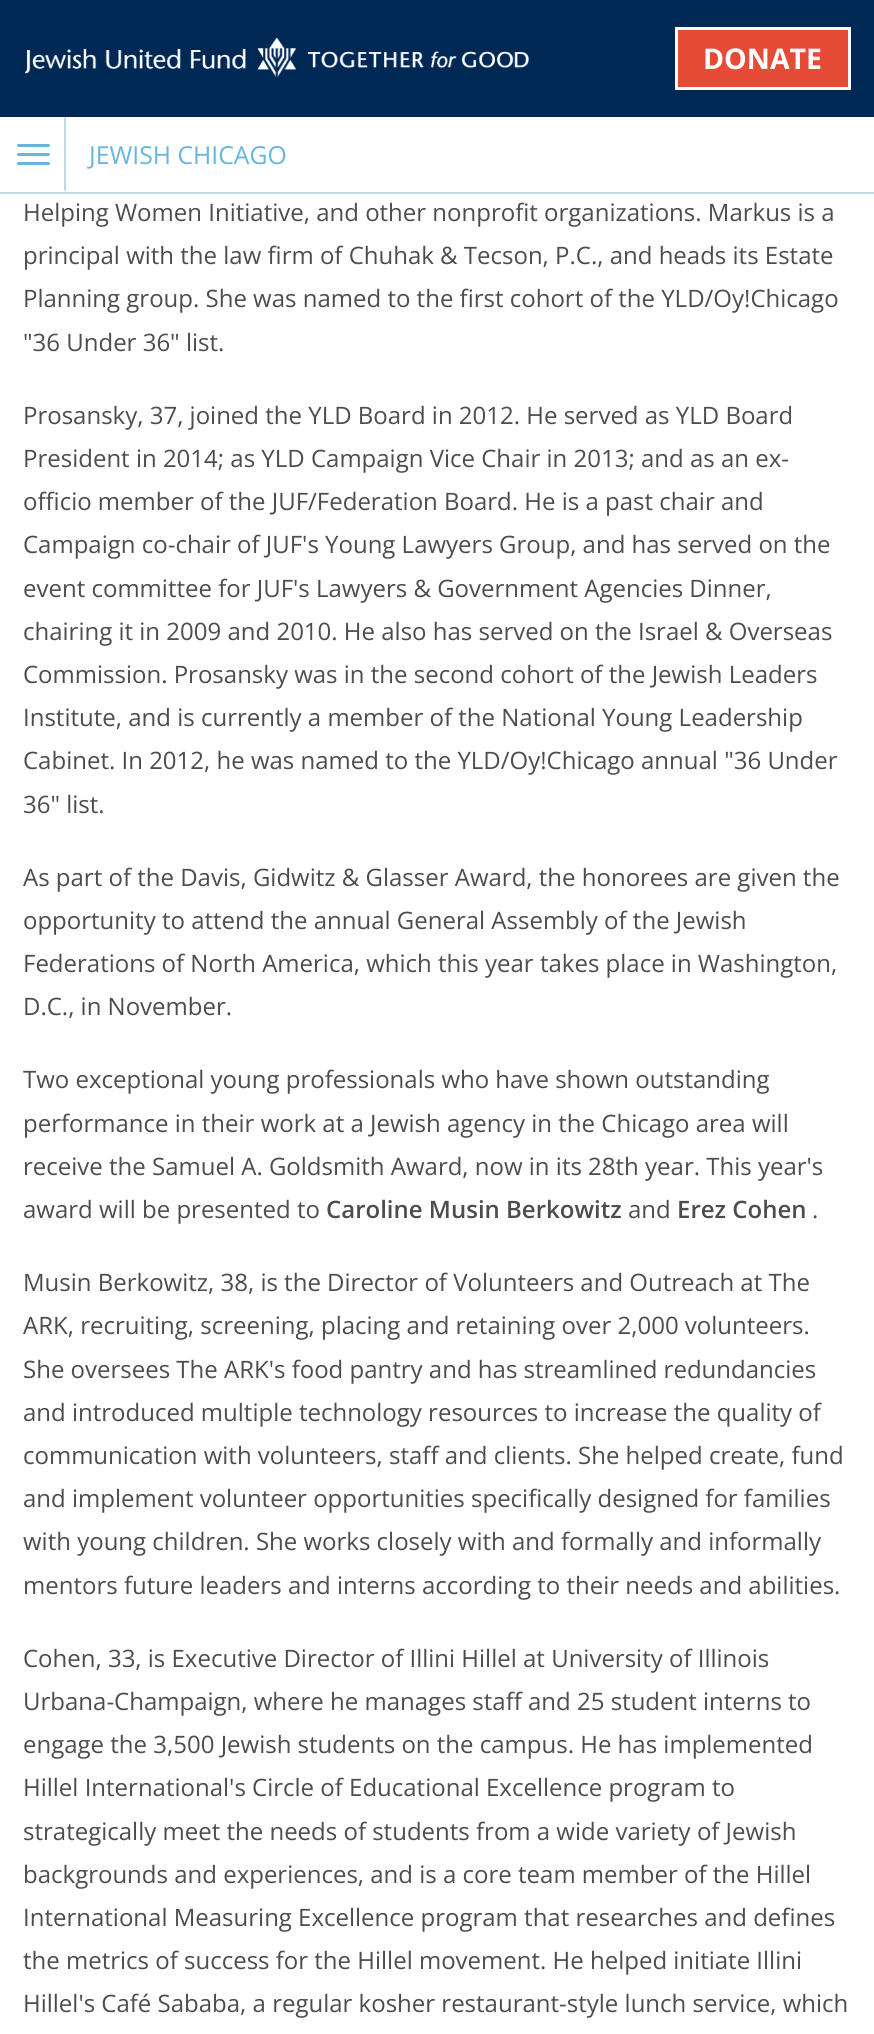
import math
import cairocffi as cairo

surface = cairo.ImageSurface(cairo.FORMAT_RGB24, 874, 2034)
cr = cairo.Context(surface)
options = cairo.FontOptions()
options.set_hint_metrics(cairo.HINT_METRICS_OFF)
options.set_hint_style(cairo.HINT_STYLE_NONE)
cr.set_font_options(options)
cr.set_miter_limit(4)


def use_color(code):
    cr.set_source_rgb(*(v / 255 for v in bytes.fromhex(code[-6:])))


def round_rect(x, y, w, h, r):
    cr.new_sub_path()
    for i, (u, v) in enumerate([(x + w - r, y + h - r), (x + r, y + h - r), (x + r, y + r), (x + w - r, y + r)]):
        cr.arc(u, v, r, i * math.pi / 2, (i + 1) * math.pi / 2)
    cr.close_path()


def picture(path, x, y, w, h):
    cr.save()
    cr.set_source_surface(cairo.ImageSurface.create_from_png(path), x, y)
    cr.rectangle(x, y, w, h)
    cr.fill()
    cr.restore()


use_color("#ffffff")
cr.paint()
use_color("#002855")
cr.rectangle(0, 0, 874, 117)
cr.fill()
picture("img1.png", 25, 38, 504, 39)
use_color("#e64b38")
cr.rectangle(676.5, 28.5, 173, 60)
cr.fill_preserve()
use_color("#ffffff")
cr.set_line_width(3)
cr.stroke()
cr.select_font_face("Open Sans", cairo.FONT_SLANT_NORMAL, cairo.FONT_WEIGHT_BOLD)
cr.set_font_size(28.5)
cr.move_to(703, 69)
cr.show_text("DONATE")
use_color("#bdd9e9")
cr.rectangle(0, 192, 874, 2)
cr.fill()
cr.new_path()
cr.move_to(66, 117)
cr.line_to(66, 192)
cr.line_to(64, 190)
cr.line_to(64, 118)
cr.close_path()
cr.fill()
use_color("#66b5dd")
round_rect(17, 144, 33, 3, 1.5)
cr.fill()
round_rect(17, 153, 33, 3, 1.5)
cr.fill()
round_rect(17, 162, 33, 3, 1.5)
cr.fill()
cr.select_font_face("Open Sans")
cr.set_font_size(24.75)
cr.move_to(89, 164)
cr.show_text("JEWISH CHICAGO")
cr.set_font_size(24)
use_color("#4d4d4d")
cr.move_to(23, 221)
cr.show_text("Helping Women Initiative, and other nonprofit organizations. Markus is a")
cr.move_to(23, 264)
cr.show_text("principal with the law firm of Chuhak & Tecson, P.C., and heads its Estate")
cr.move_to(23, 307)
cr.show_text("Planning group. She was named to the first cohort of the YLD/Oy!Chicago")
cr.move_to(23, 351)
cr.show_text("\"36 Under 36\" list.")
cr.move_to(23, 424)
cr.show_text("Prosansky, 37, joined the YLD Board in 2012. He served as YLD Board")
cr.move_to(23, 467)
cr.show_text("President in 2014; as YLD Campaign Vice Chair in 2013; and as an ex-")
cr.move_to(23, 510)
cr.show_text("officio member of the JUF/Federation Board. He is a past chair and")
cr.move_to(23, 553)
cr.show_text("Campaign co-chair of JUF's Young Lawyers Group, and has served on the")
cr.move_to(23, 597)
cr.show_text("event committee for JUF's Lawyers & Government Agencies Dinner,")
cr.move_to(23, 640)
cr.show_text("chairing it in 2009 and 2010. He also has served on the Israel & Overseas")
cr.move_to(23, 683)
cr.show_text("Commission. Prosansky was in the second cohort of the Jewish Leaders")
cr.move_to(23, 726)
cr.show_text("Institute, and is currently a member of the National Young Leadership")
cr.move_to(23, 769)
cr.show_text("Cabinet. In 2012, he was named to the YLD/Oy!Chicago annual \"36 Under")
cr.move_to(23, 813)
cr.show_text("36\" list.")
cr.move_to(23, 886)
cr.show_text("As part of the Davis, Gidwitz & Glasser Award, the honorees are given the")
cr.move_to(23, 929)
cr.show_text("opportunity to attend the annual General Assembly of the Jewish")
cr.move_to(23, 972)
cr.show_text("Federations of North America, which this year takes place in Washington,")
cr.move_to(23, 1015)
cr.show_text("D.C., in November.")
cr.move_to(23, 1088)
cr.show_text("Two exceptional young professionals who have shown outstanding")
cr.move_to(23, 1132)
cr.show_text("performance in their work at a Jewish agency in the Chicago area will")
cr.move_to(23, 1175)
cr.show_text("receive the Samuel A. Goldsmith Award, now in its 28th year. This year's")
cr.move_to(23, 1218)
cr.show_text("award will be presented to")
cr.select_font_face("Open Sans SemiBold")
cr.move_to(326, 1218)
cr.show_text("Caroline Musin Berkowitz")
cr.select_font_face("Open Sans")
cr.move_to(628, 1218)
cr.show_text("and")
cr.select_font_face("Open Sans SemiBold")
cr.move_to(677, 1218)
cr.show_text("Erez Cohen")
cr.select_font_face("Open Sans")
cr.move_to(812, 1218)
cr.show_text(".")
cr.move_to(23, 1291)
cr.show_text("Musin Berkowitz, 38, is the Director of Volunteers and Outreach at The")
cr.move_to(23, 1334)
cr.show_text("ARK, recruiting, screening, placing and retaining over 2,000 volunteers.")
cr.move_to(23, 1378)
cr.show_text("She oversees The ARK's food pantry and has streamlined redundancies")
cr.move_to(23, 1421)
cr.show_text("and introduced multiple technology resources to increase the quality of")
cr.move_to(23, 1464)
cr.show_text("communication with volunteers, staff and clients. She helped create, fund")
cr.move_to(23, 1507)
cr.show_text("and implement volunteer opportunities specifically designed for families")
cr.move_to(23, 1550)
cr.show_text("with young children. She works closely with and formally and informally")
cr.move_to(23, 1594)
cr.show_text("mentors future leaders and interns according to their needs and abilities.")
cr.move_to(23, 1667)
cr.show_text("Cohen, 33, is Executive Director of Illini Hillel at University of Illinois")
cr.move_to(23, 1710)
cr.show_text("Urbana-Champaign, where he manages staff and 25 student interns to")
cr.move_to(23, 1753)
cr.show_text("engage the 3,500 Jewish students on the campus. He has implemented")
cr.move_to(23, 1796)
cr.show_text("Hillel International's Circle of Educational Excellence program to")
cr.move_to(23, 1840)
cr.show_text("strategically meet the needs of students from a wide variety of Jewish")
cr.move_to(23, 1883)
cr.show_text("backgrounds and experiences, and is a core team member of the Hillel")
cr.move_to(23, 1926)
cr.show_text("International Measuring Excellence program that researches and defines")
cr.move_to(23, 1969)
cr.show_text("the metrics of success for the Hillel movement. He helped initiate Illini")
cr.move_to(23, 2012)
cr.show_text("Hillel's Café Sababa, a regular kosher restaurant-style lunch service, which")
surface.write_to_png("result.png")
